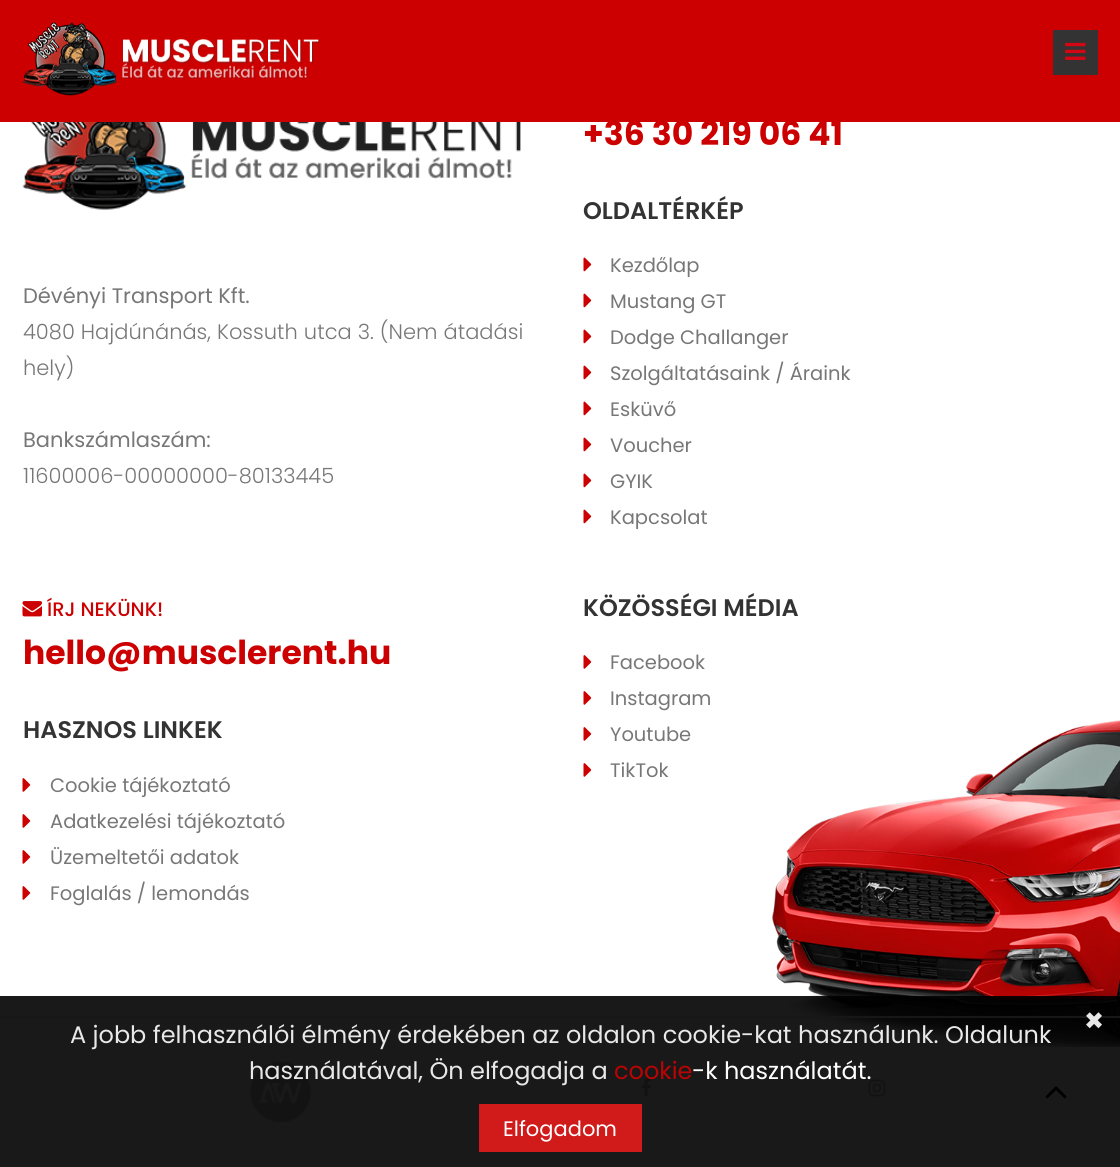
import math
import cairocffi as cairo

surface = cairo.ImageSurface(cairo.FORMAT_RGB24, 1120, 1167)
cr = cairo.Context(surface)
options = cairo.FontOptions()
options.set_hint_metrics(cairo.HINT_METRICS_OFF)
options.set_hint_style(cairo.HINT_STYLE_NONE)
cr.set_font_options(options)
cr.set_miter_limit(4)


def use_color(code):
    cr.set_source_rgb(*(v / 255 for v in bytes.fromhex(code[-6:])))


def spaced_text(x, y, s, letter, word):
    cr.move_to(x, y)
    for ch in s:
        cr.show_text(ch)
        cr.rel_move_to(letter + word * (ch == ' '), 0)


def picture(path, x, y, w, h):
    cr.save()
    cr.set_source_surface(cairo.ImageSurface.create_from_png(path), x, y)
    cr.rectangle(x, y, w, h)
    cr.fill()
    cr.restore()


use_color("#ffffff")
cr.paint()
use_color("#cc0000")
cr.rectangle(0, 0, 1120, 122)
cr.fill()
picture("img1.png", 22, 22, 298, 74)
use_color("#333333")
cr.rectangle(1053, 30, 45, 45)
cr.fill()
picture("img2.png", 1065, 42, 21, 18)
picture("img3.png", 22, 122, 499, 88)
cr.select_font_face("Poppins")
cr.set_font_size(21)
use_color("#777777")
cr.move_to(23, 303)
cr.show_text("Dévényi Transport Kft.")
cr.select_font_face("Poppins Light")
spaced_text(23, 339, "4080 Hajdúnánás, Kossuth utca 3. (Nem átadási", 0, 0.25)
cr.move_to(23, 375)
cr.show_text("hely)")
cr.select_font_face("Poppins")
cr.move_to(23, 447)
cr.show_text("Bankszámlaszám:")
cr.select_font_face("Poppins Light")
cr.move_to(23, 483)
cr.show_text("11600006-00000000-80133445")
cr.select_font_face("Poppins", cairo.FONT_SLANT_NORMAL, cairo.FONT_WEIGHT_BOLD)
cr.set_font_size(33)
use_color("#cc0000")
cr.move_to(583, 145)
cr.show_text("+36 30 219 06 41")
cr.select_font_face("Poppins SemiBold")
cr.set_font_size(24)
use_color("#333333")
cr.move_to(583, 219)
cr.show_text("OLDALTÉRKÉP")
picture("img4.png", 583, 257, 9, 15)
cr.select_font_face("Poppins")
cr.set_font_size(19.5)
use_color("#777777")
cr.move_to(610, 272)
cr.show_text("Kezdőlap")
picture("img4.png", 583, 293, 9, 15)
cr.move_to(610, 308)
cr.show_text("Mustang GT")
picture("img4.png", 583, 329, 9, 15)
cr.move_to(610, 344)
cr.show_text("Dodge Challanger")
picture("img4.png", 583, 365, 9, 15)
cr.move_to(610, 380)
cr.show_text("Szolgáltatásaink / Áraink")
picture("img4.png", 583, 401, 9, 15)
cr.move_to(610, 416)
cr.show_text("Esküvő")
picture("img4.png", 583, 437, 9, 15)
cr.move_to(610, 452)
cr.show_text("Voucher")
picture("img4.png", 583, 473, 9, 15)
cr.move_to(610, 488)
cr.show_text("GYIK")
picture("img4.png", 583, 509, 9, 15)
cr.move_to(610, 524)
cr.show_text("Kapcsolat")
picture("img5.png", 22, 601, 20, 16)
cr.select_font_face("Poppins Medium")
use_color("#cc0000")
cr.move_to(47, 616)
cr.show_text("ÍRJ NEKÜNK!")
cr.select_font_face("Poppins", cairo.FONT_SLANT_NORMAL, cairo.FONT_WEIGHT_BOLD)
cr.set_font_size(33)
cr.move_to(23, 664)
cr.show_text("hello@musclerent.hu")
cr.select_font_face("Poppins SemiBold")
cr.set_font_size(24)
use_color("#333333")
cr.move_to(23, 738)
cr.show_text("HASZNOS LINKEK")
picture("img6.png", 22, 778, 9, 14)
cr.select_font_face("Poppins")
cr.set_font_size(19.5)
use_color("#777777")
cr.move_to(50, 792)
cr.show_text("Cookie tájékoztató")
picture("img6.png", 22, 814, 9, 14)
cr.move_to(50, 828)
cr.show_text("Adatkezelési tájékoztató")
picture("img6.png", 22, 850, 9, 14)
cr.move_to(50, 864)
cr.show_text("Üzemeltetői adatok")
picture("img6.png", 22, 886, 9, 14)
cr.move_to(50, 900)
cr.show_text("Foglalás / lemondás")
cr.select_font_face("Poppins SemiBold")
cr.set_font_size(24)
use_color("#333333")
cr.move_to(583, 616)
cr.show_text("KÖZÖSSÉGI MÉDIA")
picture("img6.png", 583, 655, 9, 14)
cr.select_font_face("Poppins")
cr.set_font_size(19.5)
use_color("#777777")
cr.move_to(610, 669)
cr.show_text("Facebook")
picture("img6.png", 583, 691, 9, 14)
cr.move_to(610, 705)
cr.show_text("Instagram")
picture("img6.png", 583, 727, 9, 14)
cr.move_to(610, 741)
cr.show_text("Youtube")
picture("img6.png", 583, 763, 9, 14)
cr.move_to(610, 777)
cr.show_text("TikTok")
picture("img10.png", 772, 720, 348, 327)
use_color("#eeeeee")
cr.rectangle(0, 1016, 1120, 2)
cr.fill()
picture("img7.png", 250, 1062, 61, 60)
picture("img8.png", 641, 1078, 10, 19)
picture("img9.png", 868, 1079, 18, 18)
picture("img11.png", 1045, 1086, 22, 13)
cr.set_source_rgba(0, 0, 0, 0.9)
cr.rectangle(0, 996, 1120, 171)
cr.fill()
cr.select_font_face("DejaVu Sans")
cr.set_font_size(24)
use_color("#e8e8e8")
cr.move_to(1084, 1029)
cr.show_text("✖")
cr.select_font_face("Poppins")
cr.move_to(70, 1043)
cr.show_text("A jobb felhasználói élmény érdekében az oldalon cookie-kat használunk. Oldalunk")
cr.move_to(249, 1079)
cr.show_text("használatával, Ön elfogadja a")
use_color("#ba0303")
cr.move_to(614, 1079)
cr.show_text("cookie")
use_color("#ffffff")
cr.move_to(692, 1079)
cr.show_text("-k használatát.")
use_color("#d11a1a")
cr.rectangle(479, 1104, 163, 48)
cr.fill()
cr.set_font_size(21)
use_color("#ffffff")
cr.move_to(503, 1136)
cr.show_text("Elfogadom")
surface.write_to_png("result.png")
